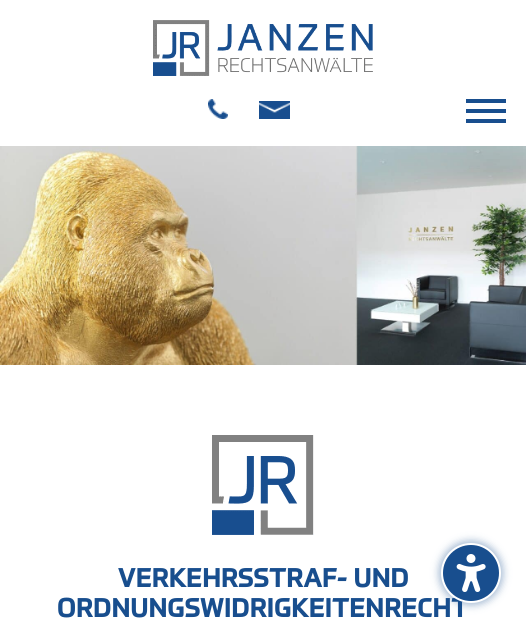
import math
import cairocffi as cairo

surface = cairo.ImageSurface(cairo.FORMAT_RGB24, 526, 628)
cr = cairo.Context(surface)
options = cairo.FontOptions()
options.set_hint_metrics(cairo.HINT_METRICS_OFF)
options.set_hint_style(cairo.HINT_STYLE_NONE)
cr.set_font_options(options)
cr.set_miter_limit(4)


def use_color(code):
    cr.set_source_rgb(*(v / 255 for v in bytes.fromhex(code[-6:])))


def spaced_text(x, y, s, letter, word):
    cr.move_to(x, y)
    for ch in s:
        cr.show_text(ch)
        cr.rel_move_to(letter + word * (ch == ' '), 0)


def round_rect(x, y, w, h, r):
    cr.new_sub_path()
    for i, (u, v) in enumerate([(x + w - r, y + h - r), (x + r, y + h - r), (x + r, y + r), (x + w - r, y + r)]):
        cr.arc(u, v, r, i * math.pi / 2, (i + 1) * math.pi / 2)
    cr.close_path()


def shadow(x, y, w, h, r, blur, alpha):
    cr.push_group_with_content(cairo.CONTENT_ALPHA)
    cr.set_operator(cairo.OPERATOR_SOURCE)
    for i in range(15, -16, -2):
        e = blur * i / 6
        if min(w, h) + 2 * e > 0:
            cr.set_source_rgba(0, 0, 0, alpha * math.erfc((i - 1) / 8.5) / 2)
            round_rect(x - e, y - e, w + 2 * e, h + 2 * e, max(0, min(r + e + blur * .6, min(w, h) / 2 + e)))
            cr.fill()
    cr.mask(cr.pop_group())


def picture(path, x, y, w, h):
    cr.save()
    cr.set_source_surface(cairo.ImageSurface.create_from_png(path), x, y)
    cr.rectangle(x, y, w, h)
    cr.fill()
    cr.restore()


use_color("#ffffff")
cr.paint()
picture("img1.png", 153, 20, 220, 56)
use_color("#184e8e")
cr.rectangle(466, 109, 40, 4)
cr.fill()
cr.rectangle(466, 99, 40, 4)
cr.fill()
cr.rectangle(466, 119, 40, 4)
cr.fill()
picture("img2.png", 208, 99, 20, 20)
picture("img3.png", 259, 101, 31, 18)
picture("img4.png", 0, 146, 526, 219)
picture("img5.png", 212, 435, 102, 100)
cr.select_font_face("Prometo", cairo.FONT_SLANT_NORMAL, cairo.FONT_WEIGHT_BOLD)
cr.set_font_size(25.6)
spaced_text(118, 587, "VERKEHRSSTRAF- UND", 0.5, 0)
spaced_text(57, 617, "ORDNUNGSWIDRIGKEITENRECHT", 0.5, 0)
use_color("#184e8e")
shadow(439, 541, 64, 64, 32, 4, 0.4)
use_color("#184e8e")
cr.arc(471, 573, 29, 0, 2 * math.pi)
cr.fill_preserve()
use_color("#ffffff")
cr.stroke()
picture("img6.png", 456, 554, 30, 38)
surface.write_to_png("result.png")
